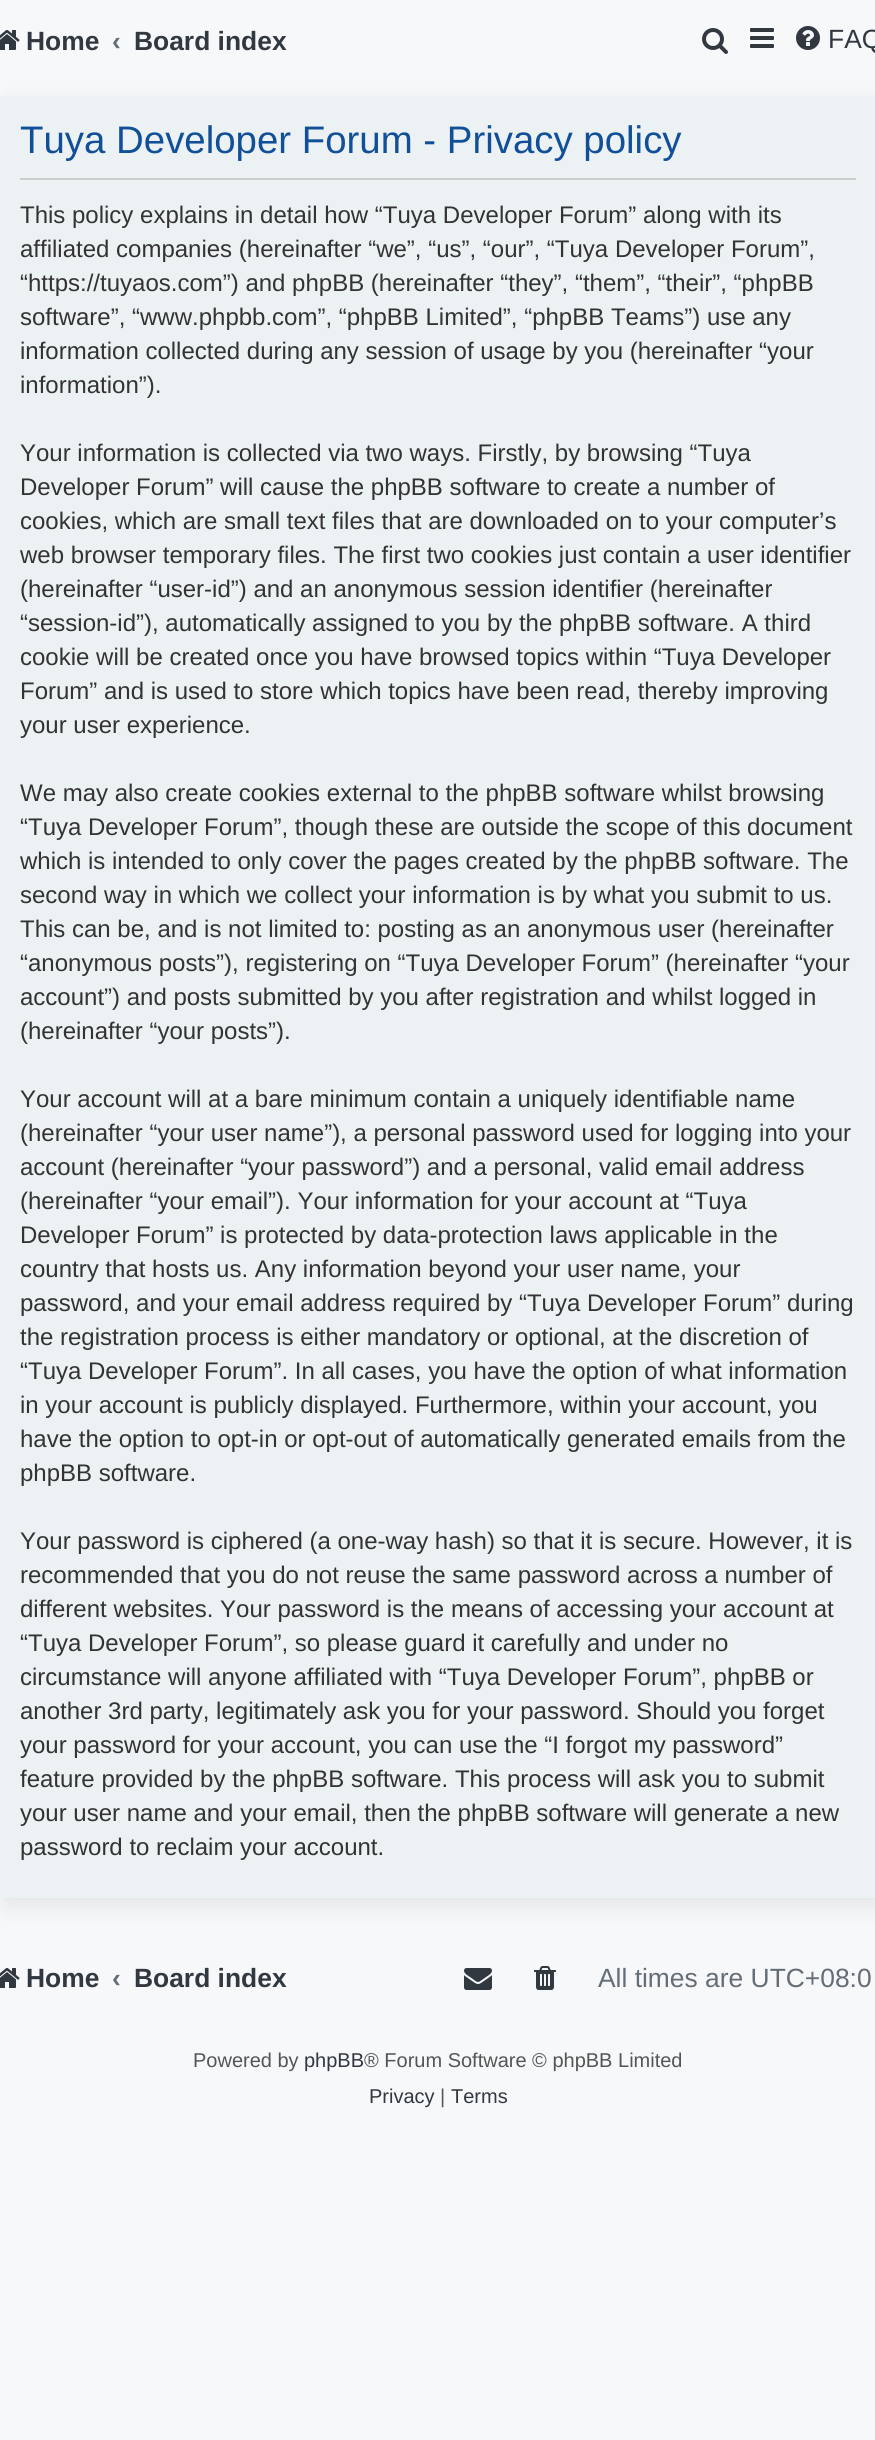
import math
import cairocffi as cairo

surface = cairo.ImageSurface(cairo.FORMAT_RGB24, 875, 2440)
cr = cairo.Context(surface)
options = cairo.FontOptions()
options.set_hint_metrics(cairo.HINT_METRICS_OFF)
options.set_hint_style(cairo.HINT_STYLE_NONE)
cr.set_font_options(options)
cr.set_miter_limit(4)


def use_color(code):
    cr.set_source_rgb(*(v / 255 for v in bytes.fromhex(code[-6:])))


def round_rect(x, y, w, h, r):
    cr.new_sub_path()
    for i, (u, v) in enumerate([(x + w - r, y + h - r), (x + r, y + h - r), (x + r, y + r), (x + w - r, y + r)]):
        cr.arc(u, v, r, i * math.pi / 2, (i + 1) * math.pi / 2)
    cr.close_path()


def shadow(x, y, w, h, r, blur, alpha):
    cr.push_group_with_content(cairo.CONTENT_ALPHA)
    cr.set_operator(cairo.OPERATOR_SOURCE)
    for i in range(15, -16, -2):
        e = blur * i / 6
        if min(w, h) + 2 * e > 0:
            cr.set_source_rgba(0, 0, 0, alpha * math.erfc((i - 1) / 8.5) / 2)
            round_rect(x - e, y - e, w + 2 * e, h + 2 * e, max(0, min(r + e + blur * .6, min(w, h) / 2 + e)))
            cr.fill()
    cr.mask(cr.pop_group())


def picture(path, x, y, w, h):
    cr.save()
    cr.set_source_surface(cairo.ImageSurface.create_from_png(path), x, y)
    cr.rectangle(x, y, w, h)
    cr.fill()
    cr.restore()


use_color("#f6f8fa")
cr.paint()
picture("img1.png", 0, 30, 20, 20)
cr.select_font_face("Liberation Sans", cairo.FONT_SLANT_NORMAL, cairo.FONT_WEIGHT_BOLD)
cr.set_font_size(26.4)
use_color("#32383f")
cr.move_to(26, 50)
cr.show_text("Home")
use_color("#656d76")
cr.move_to(112, 50)
cr.show_text("‹")
use_color("#32383f")
cr.move_to(134, 50)
cr.show_text("Board index")
picture("img2.png", 702, 28, 26, 26)
picture("img3.png", 750, 28, 24, 20)
picture("img4.png", 796, 26, 24, 24)
cr.select_font_face("Liberation Sans")
cr.move_to(828, 48)
cr.show_text("FAQ")
use_color("#000000")
shadow(4, 104, 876, 1802, 0, 12, 0.08)
use_color("#ecf1f3")
cr.rectangle(0, 96, 875, 1802)
cr.fill()
use_color("#cccccc")
cr.rectangle(20, 178, 836, 2)
cr.fill()
cr.set_font_size(38.4)
use_color("#115098")
cr.move_to(20, 153)
cr.show_text("Tuya Developer Forum - Privacy policy")
cr.set_font_size(24)
use_color("#333333")
cr.move_to(20, 223)
cr.show_text("This policy explains in detail how “Tuya Developer Forum” along with its")
cr.move_to(20, 257)
cr.show_text("affiliated companies (hereinafter “we”, “us”, “our”, “Tuya Developer Forum”,")
cr.move_to(20, 291)
cr.show_text("“https://tuyaos.com”) and phpBB (hereinafter “they”, “them”, “their”, “phpBB")
cr.move_to(20, 325)
cr.show_text("software”, “www.phpbb.com”, “phpBB Limited”, “phpBB Teams”) use any")
cr.move_to(20, 359)
cr.show_text("information collected during any session of usage by you (hereinafter “your")
cr.move_to(20, 393)
cr.show_text("information”).")
cr.move_to(20, 461)
cr.show_text("Your information is collected via two ways. Firstly, by browsing “Tuya")
cr.move_to(20, 495)
cr.show_text("Developer Forum” will cause the phpBB software to create a number of")
cr.move_to(20, 529)
cr.show_text("cookies, which are small text files that are downloaded on to your computer’s")
cr.move_to(20, 563)
cr.show_text("web browser temporary files. The first two cookies just contain a user identifier")
cr.move_to(20, 597)
cr.show_text("(hereinafter “user-id”) and an anonymous session identifier (hereinafter")
cr.move_to(20, 631)
cr.show_text("“session-id”), automatically assigned to you by the phpBB software. A third")
cr.move_to(20, 665)
cr.show_text("cookie will be created once you have browsed topics within “Tuya Developer")
cr.move_to(20, 699)
cr.show_text("Forum” and is used to store which topics have been read, thereby improving")
cr.move_to(20, 733)
cr.show_text("your user experience.")
cr.move_to(20, 801)
cr.show_text("We may also create cookies external to the phpBB software whilst browsing")
cr.move_to(20, 835)
cr.show_text("“Tuya Developer Forum”, though these are outside the scope of this document")
cr.move_to(20, 869)
cr.show_text("which is intended to only cover the pages created by the phpBB software. The")
cr.move_to(20, 903)
cr.show_text("second way in which we collect your information is by what you submit to us.")
cr.move_to(20, 937)
cr.show_text("This can be, and is not limited to: posting as an anonymous user (hereinafter")
cr.move_to(20, 971)
cr.show_text("“anonymous posts”), registering on “Tuya Developer Forum” (hereinafter “your")
cr.move_to(20, 1005)
cr.show_text("account”) and posts submitted by you after registration and whilst logged in")
cr.move_to(20, 1039)
cr.show_text("(hereinafter “your posts”).")
cr.move_to(20, 1107)
cr.show_text("Your account will at a bare minimum contain a uniquely identifiable name")
cr.move_to(20, 1141)
cr.show_text("(hereinafter “your user name”), a personal password used for logging into your")
cr.move_to(20, 1175)
cr.show_text("account (hereinafter “your password”) and a personal, valid email address")
cr.move_to(20, 1209)
cr.show_text("(hereinafter “your email”). Your information for your account at “Tuya")
cr.move_to(20, 1243)
cr.show_text("Developer Forum” is protected by data-protection laws applicable in the")
cr.move_to(20, 1277)
cr.show_text("country that hosts us. Any information beyond your user name, your")
cr.move_to(20, 1311)
cr.show_text("password, and your email address required by “Tuya Developer Forum” during")
cr.move_to(20, 1345)
cr.show_text("the registration process is either mandatory or optional, at the discretion of")
cr.move_to(20, 1379)
cr.show_text("“Tuya Developer Forum”. In all cases, you have the option of what information")
cr.move_to(20, 1413)
cr.show_text("in your account is publicly displayed. Furthermore, within your account, you")
cr.move_to(20, 1447)
cr.show_text("have the option to opt-in or opt-out of automatically generated emails from the")
cr.move_to(20, 1481)
cr.show_text("phpBB software.")
cr.move_to(20, 1549)
cr.show_text("Your password is ciphered (a one-way hash) so that it is secure. However, it is")
cr.move_to(20, 1583)
cr.show_text("recommended that you do not reuse the same password across a number of")
cr.move_to(20, 1617)
cr.show_text("different websites. Your password is the means of accessing your account at")
cr.move_to(20, 1651)
cr.show_text("“Tuya Developer Forum”, so please guard it carefully and under no")
cr.move_to(20, 1685)
cr.show_text("circumstance will anyone affiliated with “Tuya Developer Forum”, phpBB or")
cr.move_to(20, 1719)
cr.show_text("another 3rd party, legitimately ask you for your password. Should you forget")
cr.move_to(20, 1753)
cr.show_text("your password for your account, you can use the “I forgot my password”")
cr.move_to(20, 1787)
cr.show_text("feature provided by the phpBB software. This process will ask you to submit")
cr.move_to(20, 1821)
cr.show_text("your user name and your email, then the phpBB software will generate a new")
cr.move_to(20, 1855)
cr.show_text("password to reclaim your account.")
picture("img1.png", 0, 1968, 20, 20)
cr.select_font_face("Liberation Sans", cairo.FONT_SLANT_NORMAL, cairo.FONT_WEIGHT_BOLD)
cr.set_font_size(26.4)
use_color("#32383f")
cr.move_to(26, 1987)
cr.show_text("Home")
use_color("#656d76")
cr.move_to(112, 1987)
cr.show_text("‹")
use_color("#32383f")
cr.move_to(134, 1987)
cr.show_text("Board index")
picture("img5.png", 464, 1968, 28, 22)
picture("img6.png", 534, 1966, 22, 24)
cr.select_font_face("Liberation Sans")
use_color("#656d76")
cr.move_to(598, 1987)
cr.show_text("All times are UTC+08:0")
cr.set_font_size(20)
use_color("#555555")
cr.move_to(193, 2067)
cr.show_text("Powered by")
use_color("#32383f")
cr.move_to(304, 2067)
cr.show_text("phpBB")
use_color("#555555")
cr.move_to(364, 2067)
cr.show_text("® Forum Software © phpBB Limited")
use_color("#32383f")
cr.move_to(369, 2103)
cr.show_text("Privacy")
use_color("#555555")
cr.move_to(440, 2103)
cr.show_text("|")
use_color("#32383f")
cr.move_to(451, 2103)
cr.show_text("Terms")
surface.write_to_png("result.png")
